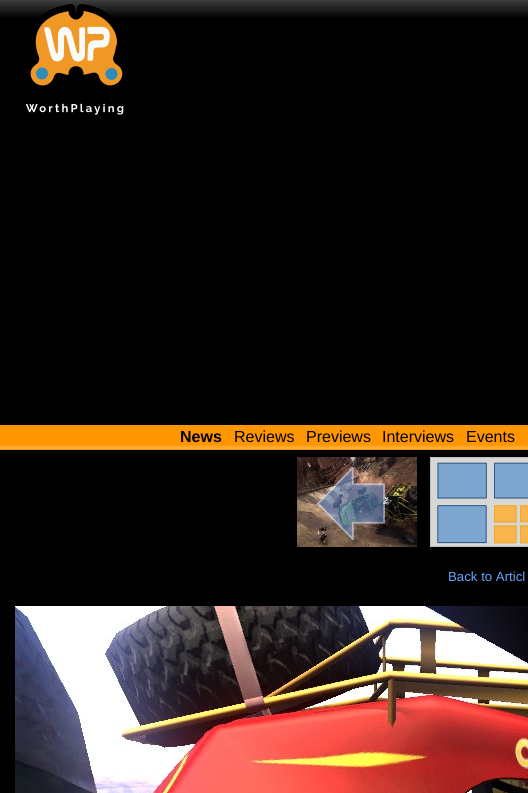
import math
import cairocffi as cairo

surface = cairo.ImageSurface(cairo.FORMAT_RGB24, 528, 793)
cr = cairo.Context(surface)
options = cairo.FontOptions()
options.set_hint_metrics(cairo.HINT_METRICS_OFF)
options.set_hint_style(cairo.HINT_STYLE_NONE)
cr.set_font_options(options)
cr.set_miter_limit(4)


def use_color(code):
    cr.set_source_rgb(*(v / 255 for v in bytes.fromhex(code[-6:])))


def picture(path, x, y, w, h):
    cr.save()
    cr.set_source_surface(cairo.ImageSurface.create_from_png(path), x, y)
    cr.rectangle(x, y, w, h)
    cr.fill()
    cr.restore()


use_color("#000000")
cr.paint()
picture("img1.png", 0, 0, 528, 17)
picture("img2.png", 25, 4, 99, 111)
use_color("#ff9600")
cr.rectangle(0, 425, 528, 25)
cr.fill()
picture("img3.png", 0, 445, 528, 4)
cr.select_font_face("Liberation Sans", cairo.FONT_SLANT_NORMAL, cairo.FONT_WEIGHT_BOLD)
cr.set_font_size(16)
use_color("#000000")
cr.move_to(180, 442)
cr.show_text("News")
cr.select_font_face("Liberation Sans")
cr.move_to(234, 442)
cr.show_text("Reviews")
cr.move_to(306, 442)
cr.show_text("Previews")
cr.move_to(382, 442)
cr.show_text("Interviews")
cr.move_to(466, 442)
cr.show_text("Events")
picture("img4.png", 297, 457, 120, 90)
picture("img5.png", 317, 467, 68, 73)
picture("img6.png", 430, 457, 98, 90)
cr.set_font_size(13.25)
use_color("#66a3ff")
cr.move_to(448, 581)
cr.show_text("Back to Articl")
picture("img7.png", 15, 606, 513, 187)
surface.write_to_png("result.png")
